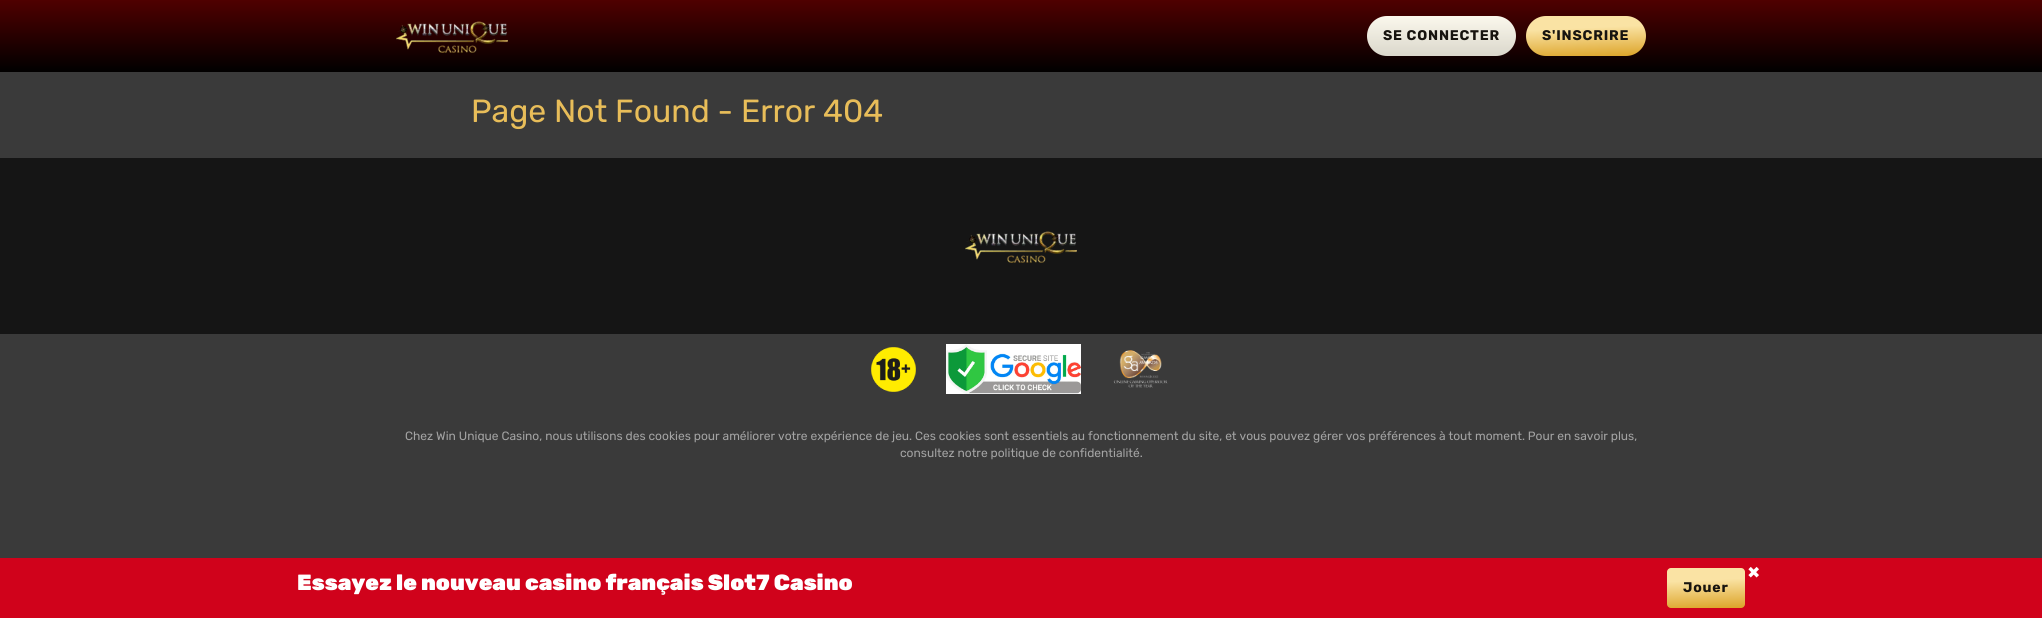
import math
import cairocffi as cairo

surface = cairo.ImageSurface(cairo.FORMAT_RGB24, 2042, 618)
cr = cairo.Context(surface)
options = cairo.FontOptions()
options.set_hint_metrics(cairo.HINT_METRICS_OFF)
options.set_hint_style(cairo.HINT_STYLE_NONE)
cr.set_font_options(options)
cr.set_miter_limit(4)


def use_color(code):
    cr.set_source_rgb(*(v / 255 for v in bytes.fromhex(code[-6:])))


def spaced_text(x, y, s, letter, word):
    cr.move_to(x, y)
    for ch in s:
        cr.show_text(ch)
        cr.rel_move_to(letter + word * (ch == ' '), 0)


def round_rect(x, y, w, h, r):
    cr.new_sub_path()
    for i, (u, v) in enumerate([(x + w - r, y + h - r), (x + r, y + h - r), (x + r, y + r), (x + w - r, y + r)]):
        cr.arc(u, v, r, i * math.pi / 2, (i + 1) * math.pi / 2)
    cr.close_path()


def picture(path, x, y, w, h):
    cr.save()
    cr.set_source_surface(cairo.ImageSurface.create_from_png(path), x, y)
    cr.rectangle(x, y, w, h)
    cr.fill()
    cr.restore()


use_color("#3a3a3a")
cr.paint()
gradient = cairo.LinearGradient(1021, 0, 1021, 72)
gradient.add_color_stop_rgba(0, 0.31, 0, 0, 1)
gradient.add_color_stop_rgba(0.98, 0.008, 0, 0, 1)
cr.set_source(gradient)
cr.rectangle(0, 0, 2042, 72)
cr.fill()
picture("img1.png", 396, 21, 112, 32)
gradient = cairo.LinearGradient(1442, 16, 1442, 56)
gradient.add_color_stop_rgba(0, 0.984, 0.973, 0.929, 1)
gradient.add_color_stop_rgba(0.98, 0.859, 0.847, 0.8, 1)
cr.set_source(gradient)
round_rect(1367, 16, 149, 40, 20)
cr.fill()
cr.select_font_face("Rubik", cairo.FONT_SLANT_NORMAL, cairo.FONT_WEIGHT_BOLD)
cr.set_font_size(14)
use_color("#17140f")
spaced_text(1383, 40, "SE CONNECTER", 0.8, 0)
gradient = cairo.LinearGradient(1585, 13, 1587, 59)
gradient.add_color_stop_rgba(0.32, 0.98, 0.89, 0.643, 1)
gradient.add_color_stop_rgba(1, 0.863, 0.639, 0.153, 1)
cr.set_source(gradient)
round_rect(1526, 16, 120, 40, 20)
cr.fill()
use_color("#17140f")
spaced_text(1542, 40, "S'INSCRIRE", 0.8, 0)
cr.select_font_face("Rubik")
cr.set_font_size(32)
use_color("#e8bd59")
cr.move_to(471, 122)
cr.show_text("Page Not Found - Error 404")
use_color("#151515")
cr.rectangle(0, 158, 2042, 176)
cr.fill()
picture("img2.png", 965, 231, 112, 32)
picture("img3.png", 871, 347, 45, 45)
picture("img4.png", 946, 344, 135, 50)
picture("img5.png", 1113, 350, 55, 38)
cr.set_font_size(12)
use_color("#a3a3a3")
cr.move_to(405, 440)
cr.show_text("Chez Win Unique Casino, nous utilisons des cookies pour améliorer votre expérience de jeu. Ces cookies sont essentiels au fonctionnement du site, et vous pouvez gérer vos préférences à tout moment. Pour en savoir plus,")
cr.move_to(900, 457)
cr.show_text("consultez notre politique de confidentialité.")
use_color("#d0021b")
cr.rectangle(0, 558, 2042, 60)
cr.fill()
cr.select_font_face("Rubik Black")
cr.set_font_size(22)
use_color("#ffffff")
cr.move_to(297, 590)
cr.show_text("Essayez le nouveau casino français Slot7 Casino")
gradient = cairo.LinearGradient(1705, 566, 1707, 610)
gradient.add_color_stop_rgba(0.32, 0.98, 0.89, 0.643, 1)
gradient.add_color_stop_rgba(1, 0.863, 0.639, 0.153, 1)
cr.set_source(gradient)
round_rect(1667, 568, 78, 40, 4)
cr.fill()
cr.select_font_face("Rubik", cairo.FONT_SLANT_NORMAL, cairo.FONT_WEIGHT_BOLD)
cr.set_font_size(14)
use_color("#17140f")
spaced_text(1683, 592, "Jouer", 0.8, 0)
cr.select_font_face("DejaVu Sans")
cr.set_font_size(16)
use_color("#ffffff")
cr.move_to(1747, 578)
cr.show_text("✖")
surface.write_to_png("result.png")
